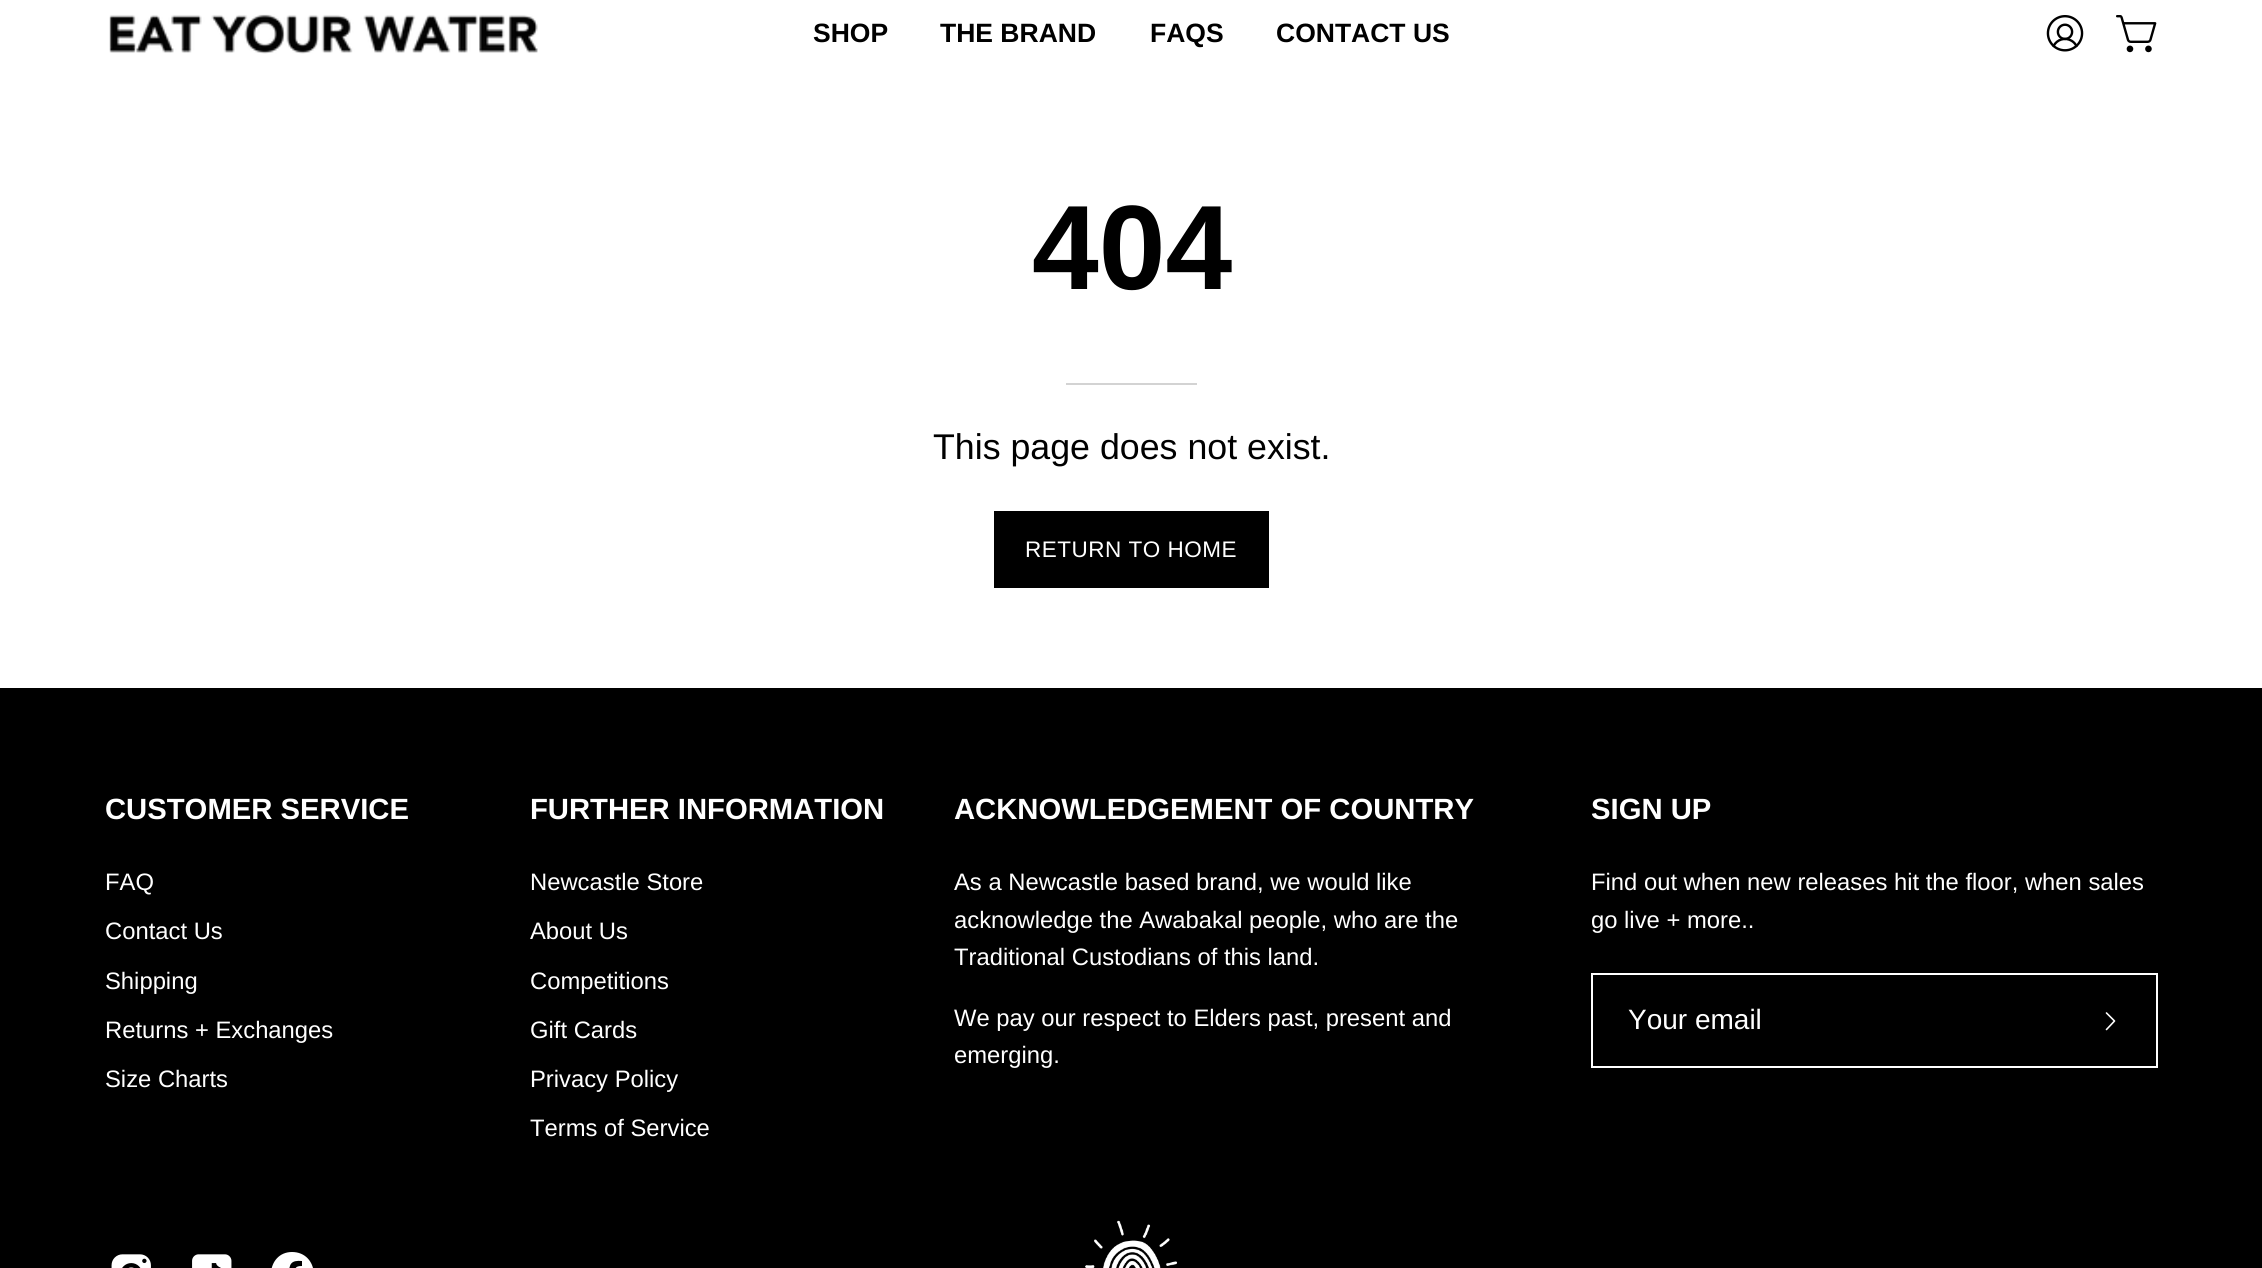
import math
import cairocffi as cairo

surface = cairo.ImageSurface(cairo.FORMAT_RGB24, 2262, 1268)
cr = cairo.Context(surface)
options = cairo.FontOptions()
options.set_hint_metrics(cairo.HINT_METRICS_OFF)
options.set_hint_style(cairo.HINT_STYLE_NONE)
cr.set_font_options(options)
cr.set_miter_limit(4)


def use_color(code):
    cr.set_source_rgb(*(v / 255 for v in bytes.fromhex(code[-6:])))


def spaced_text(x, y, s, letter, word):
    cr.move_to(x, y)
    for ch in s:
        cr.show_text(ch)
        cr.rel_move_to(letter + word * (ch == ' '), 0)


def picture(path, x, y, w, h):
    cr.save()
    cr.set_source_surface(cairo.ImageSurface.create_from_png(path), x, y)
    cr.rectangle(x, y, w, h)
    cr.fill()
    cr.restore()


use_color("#ffffff")
cr.paint()
picture("img1.png", 109, 14, 429, 40)
cr.select_font_face("Liberation Sans", cairo.FONT_SLANT_NORMAL, cairo.FONT_WEIGHT_BOLD)
cr.set_font_size(26.5)
use_color("#000000")
cr.move_to(813, 42)
cr.show_text("SHOP")
cr.move_to(940, 42)
cr.show_text("THE BRAND")
cr.move_to(1150, 42)
cr.show_text("FAQS")
cr.move_to(1276, 42)
cr.show_text("CONTACT US")
picture("img2.png", 2046, 15, 38, 37)
picture("img3.png", 2116, 15, 41, 38)
cr.set_font_size(120)
cr.move_to(1032, 289)
cr.show_text("404")
use_color("#d3d3d3")
cr.rectangle(1066, 383, 131, 2)
cr.fill()
cr.select_font_face("Liberation Sans")
cr.set_font_size(35.75)
use_color("#000000")
cr.move_to(933, 459)
cr.show_text("This page does not exist.")
cr.rectangle(994, 511, 275, 77)
cr.fill()
cr.set_font_size(22.5)
use_color("#ffffff")
spaced_text(1025, 557, "RETURN TO HOME", 0.5, 0)
use_color("#000000")
cr.rectangle(0, 688, 2262, 580)
cr.fill()
cr.select_font_face("Liberation Sans", cairo.FONT_SLANT_NORMAL, cairo.FONT_WEIGHT_BOLD)
cr.set_font_size(29.25)
use_color("#ffffff")
cr.move_to(105, 819)
cr.show_text("CUSTOMER SERVICE")
cr.select_font_face("Liberation Sans")
cr.set_font_size(23.8)
cr.move_to(105, 890)
cr.show_text("FAQ")
cr.move_to(105, 939)
cr.show_text("Contact Us")
cr.move_to(105, 989)
cr.show_text("Shipping")
cr.move_to(105, 1038)
cr.show_text("Returns + Exchanges")
cr.move_to(105, 1087)
cr.show_text("Size Charts")
cr.select_font_face("Liberation Sans", cairo.FONT_SLANT_NORMAL, cairo.FONT_WEIGHT_BOLD)
cr.set_font_size(29.25)
cr.move_to(530, 819)
cr.show_text("FURTHER INFORMATION")
cr.select_font_face("Liberation Sans")
cr.set_font_size(23.8)
cr.move_to(530, 890)
cr.show_text("Newcastle Store")
cr.move_to(530, 939)
cr.show_text("About Us")
cr.move_to(530, 989)
cr.show_text("Competitions")
cr.move_to(530, 1038)
cr.show_text("Gift Cards")
cr.move_to(530, 1087)
cr.show_text("Privacy Policy")
cr.move_to(530, 1136)
cr.show_text("Terms of Service")
cr.select_font_face("Liberation Sans", cairo.FONT_SLANT_NORMAL, cairo.FONT_WEIGHT_BOLD)
cr.set_font_size(29.25)
cr.move_to(954, 819)
cr.show_text("ACKNOWLEDGEMENT OF COUNTRY")
cr.select_font_face("Liberation Sans")
cr.set_font_size(23.8)
cr.move_to(954, 890)
cr.show_text("As a Newcastle based brand, we would like")
cr.move_to(954, 928)
cr.show_text("acknowledge the Awabakal people, who are the")
cr.move_to(954, 965)
cr.show_text("Traditional Custodians of this land.")
cr.move_to(954, 1026)
cr.show_text("We pay our respect to Elders past, present and")
cr.move_to(954, 1063)
cr.show_text("emerging.")
cr.select_font_face("Liberation Sans", cairo.FONT_SLANT_NORMAL, cairo.FONT_WEIGHT_BOLD)
cr.set_font_size(29.25)
cr.move_to(1591, 819)
cr.show_text("SIGN UP")
cr.select_font_face("Liberation Sans")
cr.set_font_size(23.8)
cr.move_to(1591, 890)
cr.show_text("Find out when new releases hit the floor, when sales")
cr.move_to(1591, 928)
cr.show_text("go live + more..")
cr.rectangle(1591, 973, 567, 2)
cr.fill()
cr.rectangle(1591, 1066, 472, 2)
cr.fill()
cr.rectangle(1591, 973, 2, 95)
cr.fill()
cr.set_font_size(28)
cr.move_to(1628, 1029)
cr.show_text("Your email")
cr.rectangle(2156, 973, 2, 95)
cr.fill()
cr.rectangle(2063, 1066, 95, 2)
cr.fill()
cr.new_path()
cr.move_to(2106.5, 1013)
cr.line_to(2114.5, 1021)
cr.line_to(2106.5, 1029.5)
cr.set_line_width(1.6)
cr.set_line_cap(cairo.LINE_CAP_ROUND)
cr.set_line_join(cairo.LINE_JOIN_ROUND)
cr.stroke()
picture("img4.png", 111, 1254, 40, 14)
picture("img5.png", 192, 1254, 40, 14)
cr.new_path()
cr.move_to(292, 1252)
cr.curve_to(266, 1252, 263, 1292, 289, 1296)
cr.line_to(289, 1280)
cr.line_to(284, 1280)
cr.line_to(284, 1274)
cr.line_to(289, 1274)
cr.curve_to(289, 1264, 291, 1260, 302, 1261)
cr.line_to(302, 1266)
cr.curve_to(295, 1266, 295, 1268, 295, 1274)
cr.line_to(302, 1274)
cr.line_to(301, 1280)
cr.line_to(295, 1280)
cr.line_to(295, 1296)
cr.curve_to(322, 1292, 319, 1252, 292, 1252)
cr.close_path()
cr.fill()
picture("img6.png", 1085, 1220, 93, 48)
surface.write_to_png("result.png")
